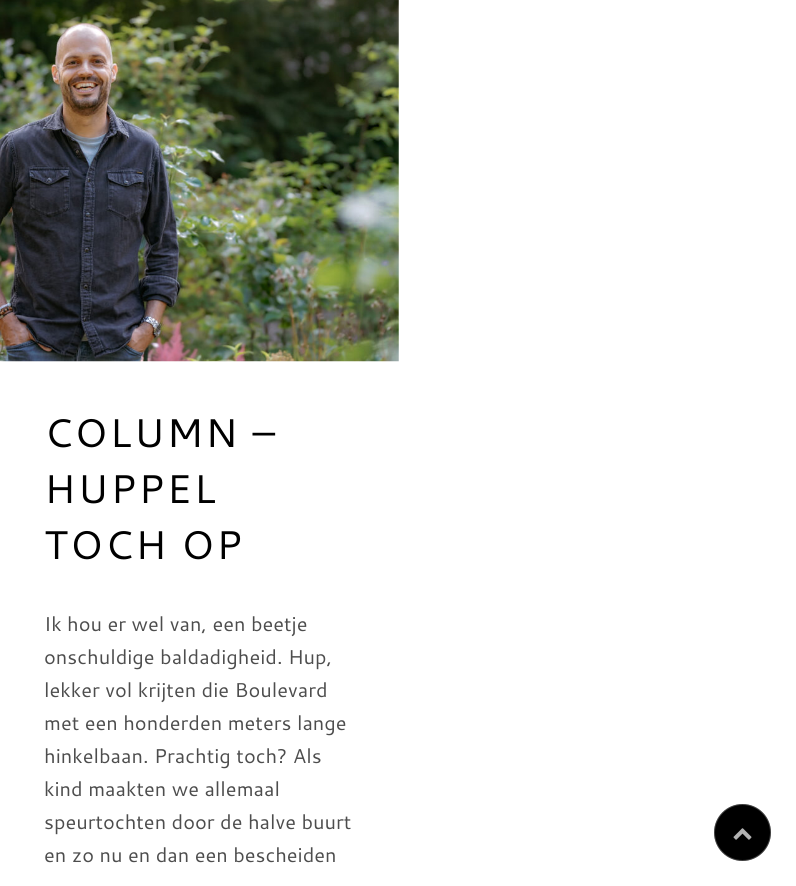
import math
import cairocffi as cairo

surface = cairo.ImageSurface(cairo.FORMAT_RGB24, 796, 886)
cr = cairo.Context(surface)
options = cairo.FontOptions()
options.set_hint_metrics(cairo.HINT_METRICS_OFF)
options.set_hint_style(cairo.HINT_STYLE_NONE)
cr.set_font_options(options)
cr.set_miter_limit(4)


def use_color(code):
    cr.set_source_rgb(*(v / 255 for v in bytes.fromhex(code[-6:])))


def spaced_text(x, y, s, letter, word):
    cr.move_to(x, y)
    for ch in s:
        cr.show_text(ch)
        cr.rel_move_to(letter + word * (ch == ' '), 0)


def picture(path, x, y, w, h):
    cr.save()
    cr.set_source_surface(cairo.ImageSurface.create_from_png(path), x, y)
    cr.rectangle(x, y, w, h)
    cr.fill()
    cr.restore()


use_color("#ffffff")
cr.paint()
picture("img1.png", 0, 0, 399, 362)
cr.select_font_face("Cantarell")
cr.set_font_size(40)
use_color("#000000")
spaced_text(44, 447, "COLUMN –", 2, 0)
spaced_text(44, 503, "HUPPEL", 2, 0)
spaced_text(44, 559, "TOCH OP", 2, 0)
cr.set_font_size(20)
use_color("#4d4d4d")
cr.move_to(44, 631)
cr.show_text("Ik hou er wel van, een beetje")
cr.move_to(44, 664)
cr.show_text("onschuldige baldadigheid. Hup,")
cr.move_to(44, 697)
cr.show_text("lekker vol krijten die Boulevard")
cr.move_to(44, 730)
cr.show_text("met een honderden meters lange")
cr.move_to(44, 763)
cr.show_text("hinkelbaan. Prachtig toch? Als")
cr.move_to(44, 796)
cr.show_text("kind maakten we allemaal")
cr.move_to(44, 829)
cr.show_text("speurtochten door de halve buurt")
cr.move_to(44, 862)
cr.show_text("en zo nu en dan een bescheiden")
use_color("#000000")
cr.new_path()
cr.arc(742.5, 832.5, 28.5, 0, 2 * math.pi)
cr.fill()
cr.arc(742.5, 832.5, 28, 0, 2 * math.pi)
cr.set_source_rgba(1, 1, 1, 0.25)
cr.set_line_width(1)
cr.stroke()
picture("img2.png", 733, 828, 19, 12)
surface.write_to_png("result.png")
